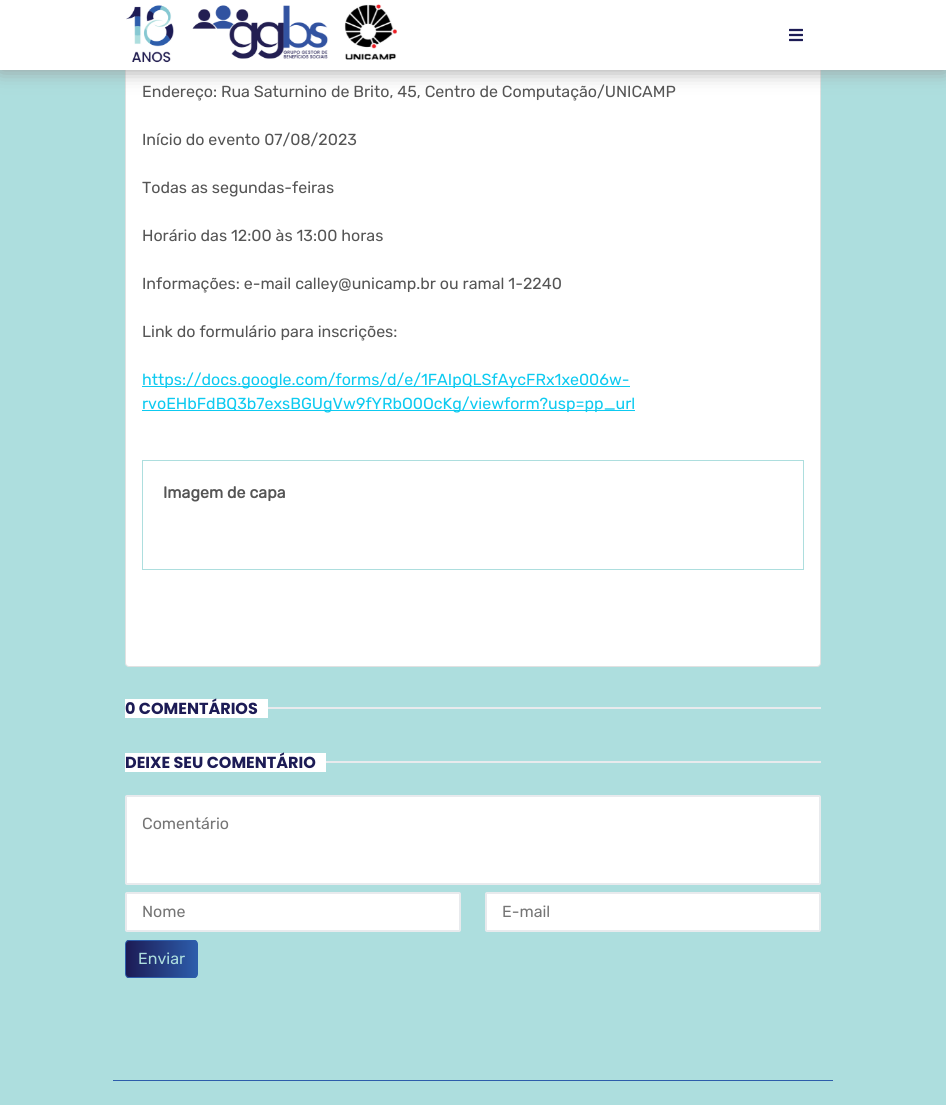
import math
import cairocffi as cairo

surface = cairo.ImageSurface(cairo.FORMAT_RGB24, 946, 1105)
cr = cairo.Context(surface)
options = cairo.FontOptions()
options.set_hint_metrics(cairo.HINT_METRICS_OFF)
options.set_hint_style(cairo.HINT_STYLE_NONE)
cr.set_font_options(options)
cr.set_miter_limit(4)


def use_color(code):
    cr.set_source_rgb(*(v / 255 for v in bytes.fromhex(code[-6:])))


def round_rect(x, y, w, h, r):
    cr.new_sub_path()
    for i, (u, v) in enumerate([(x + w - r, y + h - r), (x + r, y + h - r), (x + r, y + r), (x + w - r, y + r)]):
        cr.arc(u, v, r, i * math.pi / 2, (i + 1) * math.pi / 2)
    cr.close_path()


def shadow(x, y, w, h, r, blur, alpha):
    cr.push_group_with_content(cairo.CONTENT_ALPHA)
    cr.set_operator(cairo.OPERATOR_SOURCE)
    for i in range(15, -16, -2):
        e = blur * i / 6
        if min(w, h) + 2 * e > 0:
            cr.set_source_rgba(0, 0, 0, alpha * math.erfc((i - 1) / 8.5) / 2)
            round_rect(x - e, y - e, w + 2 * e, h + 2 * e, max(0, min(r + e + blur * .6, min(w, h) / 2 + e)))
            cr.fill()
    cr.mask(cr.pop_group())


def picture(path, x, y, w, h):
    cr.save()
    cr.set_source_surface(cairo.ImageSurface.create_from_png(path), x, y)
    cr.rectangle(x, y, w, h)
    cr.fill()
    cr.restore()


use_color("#addede")
cr.paint()
use_color("#ffffff")
round_rect(125, -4, 696, 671, 4)
cr.fill()
round_rect(125.5, -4.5, 695, 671, 3.5)
cr.set_source_rgba(0, 0, 0, 0.12)
cr.set_line_width(1)
cr.stroke()
use_color("#999999")
shadow(0, 0, 946, 70, 0, 10, 1)
use_color("#ffffff")
cr.rectangle(0, 0, 946, 70)
cr.fill()
picture("img1.png", 126, 4, 271, 59)
picture("img2.png", 789, 28, 14, 14)
cr.select_font_face("Rubik")
cr.set_font_size(16)
use_color("#555555")
cr.move_to(142, 97)
cr.show_text("Endereço: Rua Saturnino de Brito, 45, Centro de Computação/UNICAMP")
cr.move_to(142, 145)
cr.show_text("Início do evento 07/08/2023")
cr.move_to(142, 193)
cr.show_text("Todas as segundas-feiras")
cr.move_to(142, 241)
cr.show_text("Horário das 12:00 às 13:00 horas")
cr.move_to(142, 289)
cr.show_text("Informações: e-mail calley@unicamp.br ou ramal 1-2240")
cr.move_to(142, 337)
cr.show_text("Link do formulário para inscrições:")
use_color("#0dcaf0")
cr.rectangle(142, 386, 488, 1)
cr.fill()
cr.move_to(142, 385)
cr.show_text("https://docs.google.com/forms/d/e/1FAIpQLSfAycFRx1xe006w-")
cr.rectangle(142, 410, 493, 1)
cr.fill()
cr.move_to(142, 409)
cr.show_text("rvoEHbFdBQ3b7exsBGUgVw9fYRbO0OcKg/viewform?usp=pp_url")
cr.rectangle(142.5, 460.5, 661, 109)
use_color("#addede")
cr.stroke()
cr.select_font_face("Rubik", cairo.FONT_SLANT_NORMAL, cairo.FONT_WEIGHT_BOLD)
use_color("#555555")
cr.move_to(163, 498)
cr.show_text("Imagem de capa")
use_color("#ffffff")
cr.rectangle(125, 699, 143, 19)
cr.fill()
cr.select_font_face("Poppins", cairo.FONT_SLANT_NORMAL, cairo.FONT_WEIGHT_BOLD)
use_color("#1c1b55")
cr.move_to(125, 714)
cr.show_text("0 COMENTÁRIOS")
use_color("#e8eaed")
cr.rectangle(268, 707, 553, 2)
cr.fill()
use_color("#ffffff")
cr.rectangle(125, 753, 201, 19)
cr.fill()
use_color("#1c1b55")
cr.move_to(125, 768)
cr.show_text("DEIXE SEU COMENTÁRIO")
use_color("#e8eaed")
cr.rectangle(326, 761, 495, 2)
cr.fill()
use_color("#ffffff")
round_rect(126, 796, 694, 88, 1)
cr.fill_preserve()
use_color("#e8eaed")
cr.set_line_width(2)
cr.stroke()
cr.select_font_face("Rubik")
use_color("#757575")
cr.move_to(142, 829)
cr.show_text("Comentário")
use_color("#ffffff")
round_rect(126, 893, 334, 38, 1)
cr.fill_preserve()
use_color("#e8eaed")
cr.stroke()
use_color("#757575")
cr.move_to(142, 917)
cr.show_text("Nome")
use_color("#ffffff")
round_rect(486, 893, 334, 38, 1)
cr.fill_preserve()
use_color("#e8eaed")
cr.stroke()
use_color("#757575")
cr.move_to(502, 917)
cr.show_text("E-mail")
cr.save()
round_rect(125, 940, 73, 38, 4)
cr.clip()
gradient = cairo.LinearGradient(126, 959, 197, 959)
gradient.add_color_stop_rgba(0, 0.11, 0.106, 0.333, 1)
gradient.add_color_stop_rgba(1, 0.176, 0.365, 0.671, 1)
cr.set_source(gradient)
cr.rectangle(126, 940, 71, 38)
cr.fill()
cr.restore()
round_rect(125.5, 940.5, 72, 37, 3.5)
use_color("#2d5dab")
cr.set_line_width(1)
cr.stroke()
use_color("#addede")
cr.move_to(138, 964)
cr.show_text("Enviar")
use_color("#2d5dab")
cr.rectangle(113, 1080, 720, 1)
cr.fill()
surface.write_to_png("result.png")
